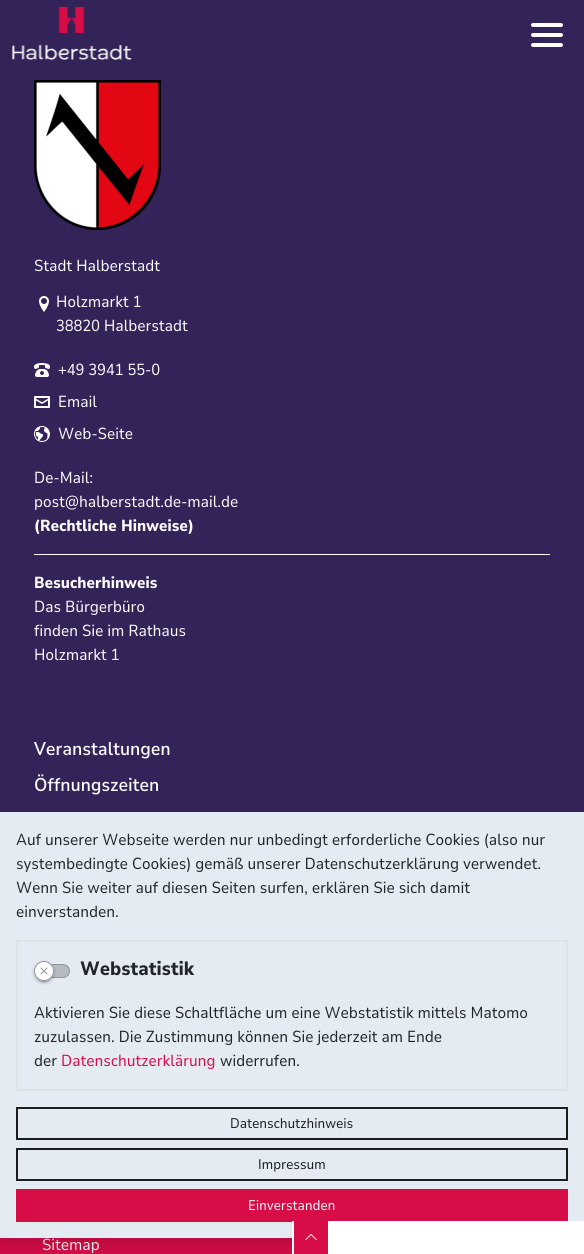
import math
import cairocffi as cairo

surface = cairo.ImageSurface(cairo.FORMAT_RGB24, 584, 1254)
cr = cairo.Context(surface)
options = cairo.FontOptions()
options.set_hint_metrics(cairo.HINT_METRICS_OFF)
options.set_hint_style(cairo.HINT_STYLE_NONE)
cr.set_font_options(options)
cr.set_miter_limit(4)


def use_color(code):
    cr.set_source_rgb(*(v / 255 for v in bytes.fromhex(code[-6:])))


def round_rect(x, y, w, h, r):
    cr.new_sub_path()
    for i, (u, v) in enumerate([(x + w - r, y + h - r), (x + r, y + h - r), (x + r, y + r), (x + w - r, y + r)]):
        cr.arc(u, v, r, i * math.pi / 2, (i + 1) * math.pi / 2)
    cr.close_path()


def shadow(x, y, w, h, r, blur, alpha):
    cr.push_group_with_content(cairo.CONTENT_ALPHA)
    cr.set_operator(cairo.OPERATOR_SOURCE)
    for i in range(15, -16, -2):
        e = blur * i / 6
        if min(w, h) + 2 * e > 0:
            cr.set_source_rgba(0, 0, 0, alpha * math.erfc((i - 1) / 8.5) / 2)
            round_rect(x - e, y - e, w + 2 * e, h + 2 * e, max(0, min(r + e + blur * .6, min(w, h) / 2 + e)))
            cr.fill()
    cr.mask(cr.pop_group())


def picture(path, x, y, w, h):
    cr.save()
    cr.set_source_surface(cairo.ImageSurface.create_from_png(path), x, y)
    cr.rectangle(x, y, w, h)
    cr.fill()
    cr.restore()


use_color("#332358")
cr.paint()
picture("img1.png", 12, 6, 120, 54)
use_color("#ffffff")
round_rect(531, 23, 32, 4, 2)
cr.fill()
round_rect(531, 33, 32, 4, 2)
cr.fill()
round_rect(531, 43, 32, 4, 2)
cr.fill()
picture("img2.png", 34, 80, 127, 150)
picture("img3.png", 34, 259, 126, 13)
picture("img4.png", 39, 296, 10, 16)
picture("img5.png", 57, 295, 84, 13)
picture("img6.png", 56, 319, 132, 13)
picture("img7.png", 34, 363, 16, 14)
picture("img8.png", 58, 363, 102, 13)
picture("img9.png", 34, 396, 16, 12)
picture("img10.png", 59, 395, 38, 13)
picture("img11.png", 34, 426, 16, 16)
picture("img12.png", 58, 427, 75, 13)
picture("img13.png", 35, 471, 57, 13)
picture("img14.png", 35, 495, 203, 15)
picture("img15.png", 35, 519, 5, 16)
picture("img16.png", 41, 519, 147, 13)
picture("img17.png", 188, 519, 5, 15)
cr.rectangle(34, 554, 516, 1)
cr.fill()
picture("img18.png", 35, 576, 122, 13)
picture("img19.png", 35, 600, 110, 15)
picture("img20.png", 34, 624, 152, 13)
picture("img5.png", 35, 648, 84, 13)
picture("img21.png", 34, 742, 136, 17)
picture("img22.png", 35, 774, 123, 21)
use_color("#d60d47")
cr.rectangle(0, 1238, 292, 16)
cr.fill()
picture("img23.png", 42, 1238, 57, 15)
use_color("#000000")
shadow(0, 820, 584, 426, 0, 8, 0.15)
use_color("#e4ebf3")
cr.rectangle(0, 812, 584, 426)
cr.fill()
use_color("#d60d47")
cr.rectangle(16, 1189, 552, 33)
cr.fill()
use_color("#000000")
shadow(292, 1223, 292, 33, 0, 2, 0.07)
use_color("#ffffff")
cr.rectangle(292, 1221, 292, 33)
cr.fill()
use_color("#d60d47")
cr.rectangle(294, 1221, 34, 33)
cr.fill()
picture("img24.png", 305, 1234, 12, 6)
picture("img25.png", 16, 833, 529, 15)
picture("img26.png", 16, 857, 525, 15)
picture("img27.png", 16, 881, 454, 14)
picture("img28.png", 16, 905, 102, 13)
cr.rectangle(17, 941, 550, 149)
use_color("#dee2e6")
cr.stroke()
use_color("#b6bcc2")
round_rect(34.5, 964.5, 35, 13, 6.5)
cr.fill_preserve()
use_color("#949494")
cr.set_line_width(1)
cr.stroke()
use_color("#000000")
shadow(34, 962, 20, 20, 10, 2.5, 0.12)
shadow(34, 963, 20, 20, 10, 1, 0.14)
shadow(36, 966, 16, 16, 8, 0.5, 0.2)
use_color("#ffffff")
cr.arc(44, 971, 10, 0, 2 * math.pi)
cr.fill()
picture("img29.png", 40, 967, 8, 8)
cr.arc(44, 971, 9.5, 0, 2 * math.pi)
use_color("#949494")
cr.stroke()
picture("img30.png", 80, 960, 115, 16)
picture("img31.png", 34, 1006, 494, 13)
picture("img32.png", 34, 1030, 408, 16)
picture("img33.png", 34, 1054, 23, 13)
picture("img34.png", 62, 1054, 153, 15)
picture("img35.png", 220, 1054, 79, 13)
cr.rectangle(17, 1108, 550, 31)
use_color("#1d1d1d")
cr.set_line_width(2)
cr.stroke()
picture("img36.png", 231, 1118, 122, 11)
cr.rectangle(17, 1149, 550, 31)
cr.stroke()
picture("img37.png", 259, 1159, 66, 13)
picture("img38.png", 249, 1200, 86, 11)
surface.write_to_png("result.png")
